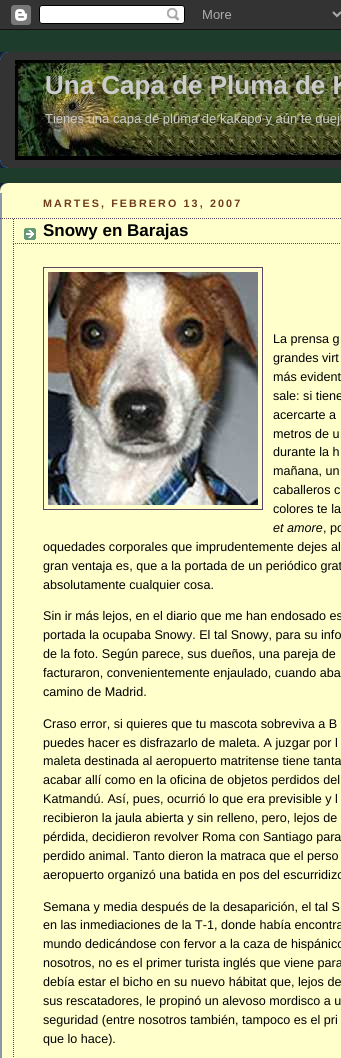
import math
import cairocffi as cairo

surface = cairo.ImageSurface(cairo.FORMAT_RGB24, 341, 1058)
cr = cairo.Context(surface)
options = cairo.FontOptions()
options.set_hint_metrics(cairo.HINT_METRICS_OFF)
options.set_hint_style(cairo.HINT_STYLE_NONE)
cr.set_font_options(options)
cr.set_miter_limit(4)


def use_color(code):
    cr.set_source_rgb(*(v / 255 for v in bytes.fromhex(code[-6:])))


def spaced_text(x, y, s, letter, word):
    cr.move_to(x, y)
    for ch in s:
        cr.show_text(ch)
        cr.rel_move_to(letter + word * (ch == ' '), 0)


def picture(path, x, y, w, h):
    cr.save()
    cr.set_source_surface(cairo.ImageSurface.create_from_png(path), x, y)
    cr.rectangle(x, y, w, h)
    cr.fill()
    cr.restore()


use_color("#1e3c2c")
cr.paint()
picture("img1.png", 0, 0, 341, 30)
use_color("#333333")
cr.rectangle(0, 52, 341, 116)
cr.fill()
picture("img2.png", 0, 52, 8, 8)
picture("img3.png", 0, 160, 8, 8)
picture("img4.png", 15, 60, 326, 100)
cr.select_font_face("Liberation Sans", cairo.FONT_SLANT_NORMAL, cairo.FONT_WEIGHT_BOLD)
cr.set_font_size(26)
use_color("#cccccc")
cr.move_to(45, 94)
cr.show_text("Una Capa de Pluma de K")
cr.select_font_face("Liberation Sans")
cr.set_font_size(13)
cr.move_to(45, 123)
cr.show_text("Tienes una capa de pluma de kakapo y aún te quej")
use_color("#ffffcc")
cr.rectangle(0, 183, 341, 875)
cr.fill()
picture("img5.png", 0, 183, 8, 8)
use_color("#8899aa")
cr.rectangle(0, 193, 2, 865)
cr.fill()
cr.select_font_face("Liberation Sans", cairo.FONT_SLANT_NORMAL, cairo.FONT_WEIGHT_BOLD)
cr.set_font_size(10.75)
use_color("#6f3c1b")
spaced_text(43, 207, "MARTES, FEBRERO 13, 2007", 2.1, 0)
cr.new_path()
cr.move_to(0, 218.5)
cr.line_to(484, 218.5)
use_color("#5f4466")
cr.set_line_width(1)
cr.set_dash([1, 1])
cr.stroke()
picture("img6.png", 24, 228, 12, 12)
cr.new_path()
cr.move_to(13, 243.5)
cr.line_to(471, 243.5)
cr.stroke()
cr.new_path()
cr.move_to(13.5, 219)
cr.line_to(13.5, 244)
cr.stroke()
cr.set_font_size(17)
use_color("#000000")
cr.move_to(43, 236)
cr.show_text("Snowy en Barajas")
cr.new_path()
cr.move_to(13.5, 244)
cr.line_to(13.5, 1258)
use_color("#5f4466")
cr.stroke()
cr.rectangle(43.5, 267.5, 219, 242)
cr.set_dash([])
cr.stroke()
picture("img7.png", 48, 272, 210, 233)
cr.select_font_face("Liberation Sans")
cr.set_font_size(12.6)
use_color("#000000")
cr.move_to(273, 343)
cr.show_text("La prensa g")
cr.move_to(273, 362)
cr.show_text("grandes virt")
cr.move_to(273, 381)
cr.show_text("más evident")
cr.move_to(273, 400)
cr.show_text("sale: si tiene")
cr.move_to(273, 419)
cr.show_text("acercarte a")
cr.move_to(273, 438)
cr.show_text("metros de u")
cr.move_to(273, 456)
cr.show_text("durante la h")
cr.move_to(273, 475)
cr.show_text("mañana, un")
cr.move_to(273, 494)
cr.show_text("caballeros c")
cr.move_to(273, 513)
cr.show_text("colores te la")
cr.select_font_face("Liberation Sans", cairo.FONT_SLANT_ITALIC)
cr.move_to(273, 532)
cr.show_text("et amore")
cr.select_font_face("Liberation Sans")
cr.move_to(323, 532)
cr.show_text(", po")
cr.move_to(43, 551)
cr.show_text("oquedades corporales que imprudentemente dejes al")
cr.move_to(43, 570)
cr.show_text("gran ventaja es, que a la portada de un periódico grat")
cr.move_to(43, 589)
cr.show_text("absolutamente cualquier cosa.")
cr.move_to(43, 620)
cr.show_text("Sin ir más lejos, en el diario que me han endosado es")
cr.move_to(43, 639)
cr.show_text("portada la ocupaba Snowy. El tal Snowy, para su info")
cr.move_to(43, 658)
cr.show_text("de la foto. Según parece, sus dueños, una pareja de")
cr.move_to(43, 677)
cr.show_text("facturaron, convenientemente enjaulado, cuando aba")
cr.move_to(43, 696)
cr.show_text("camino de Madrid.")
cr.move_to(43, 728)
cr.show_text("Craso error, si quieres que tu mascota sobreviva a B")
cr.move_to(43, 747)
cr.show_text("puedes hacer es disfrazarlo de maleta. A juzgar por l")
cr.move_to(43, 765)
cr.show_text("maleta destinada al aeropuerto matritense tiene tanta")
cr.move_to(43, 784)
cr.show_text("acabar allí como en la oficina de objetos perdidos del")
cr.move_to(43, 803)
cr.show_text("Katmandú. Así, pues, ocurrió lo que era previsible y l")
cr.move_to(43, 822)
cr.show_text("recibieron la jaula abierta y sin relleno, pero, lejos de")
cr.move_to(43, 841)
cr.show_text("pérdida, decidieron revolver Roma con Santiago para")
cr.move_to(43, 860)
cr.show_text("perdido animal. Tanto dieron la matraca que el perso")
cr.move_to(43, 879)
cr.show_text("aeropuerto organizó una batida en pos del escurridizo")
cr.move_to(43, 911)
cr.show_text("Semana y media después de la desaparición, el tal S")
cr.move_to(43, 929)
cr.show_text("en las inmediaciones de la T-1, donde había encontra")
cr.move_to(43, 948)
cr.show_text("mundo dedicándose con fervor a la caza de hispánico")
cr.move_to(43, 967)
cr.show_text("nosotros, no es el primer turista inglés que viene para")
cr.move_to(43, 986)
cr.show_text("debía estar el bicho en su nuevo hábitat que, lejos de")
cr.move_to(43, 1005)
cr.show_text("sus rescatadores, le propinó un alevoso mordisco a u")
cr.move_to(43, 1024)
cr.show_text("seguridad (entre nosotros también, tampoco es el pri")
cr.move_to(43, 1043)
cr.show_text("que lo hace).")
surface.write_to_png("result.png")
